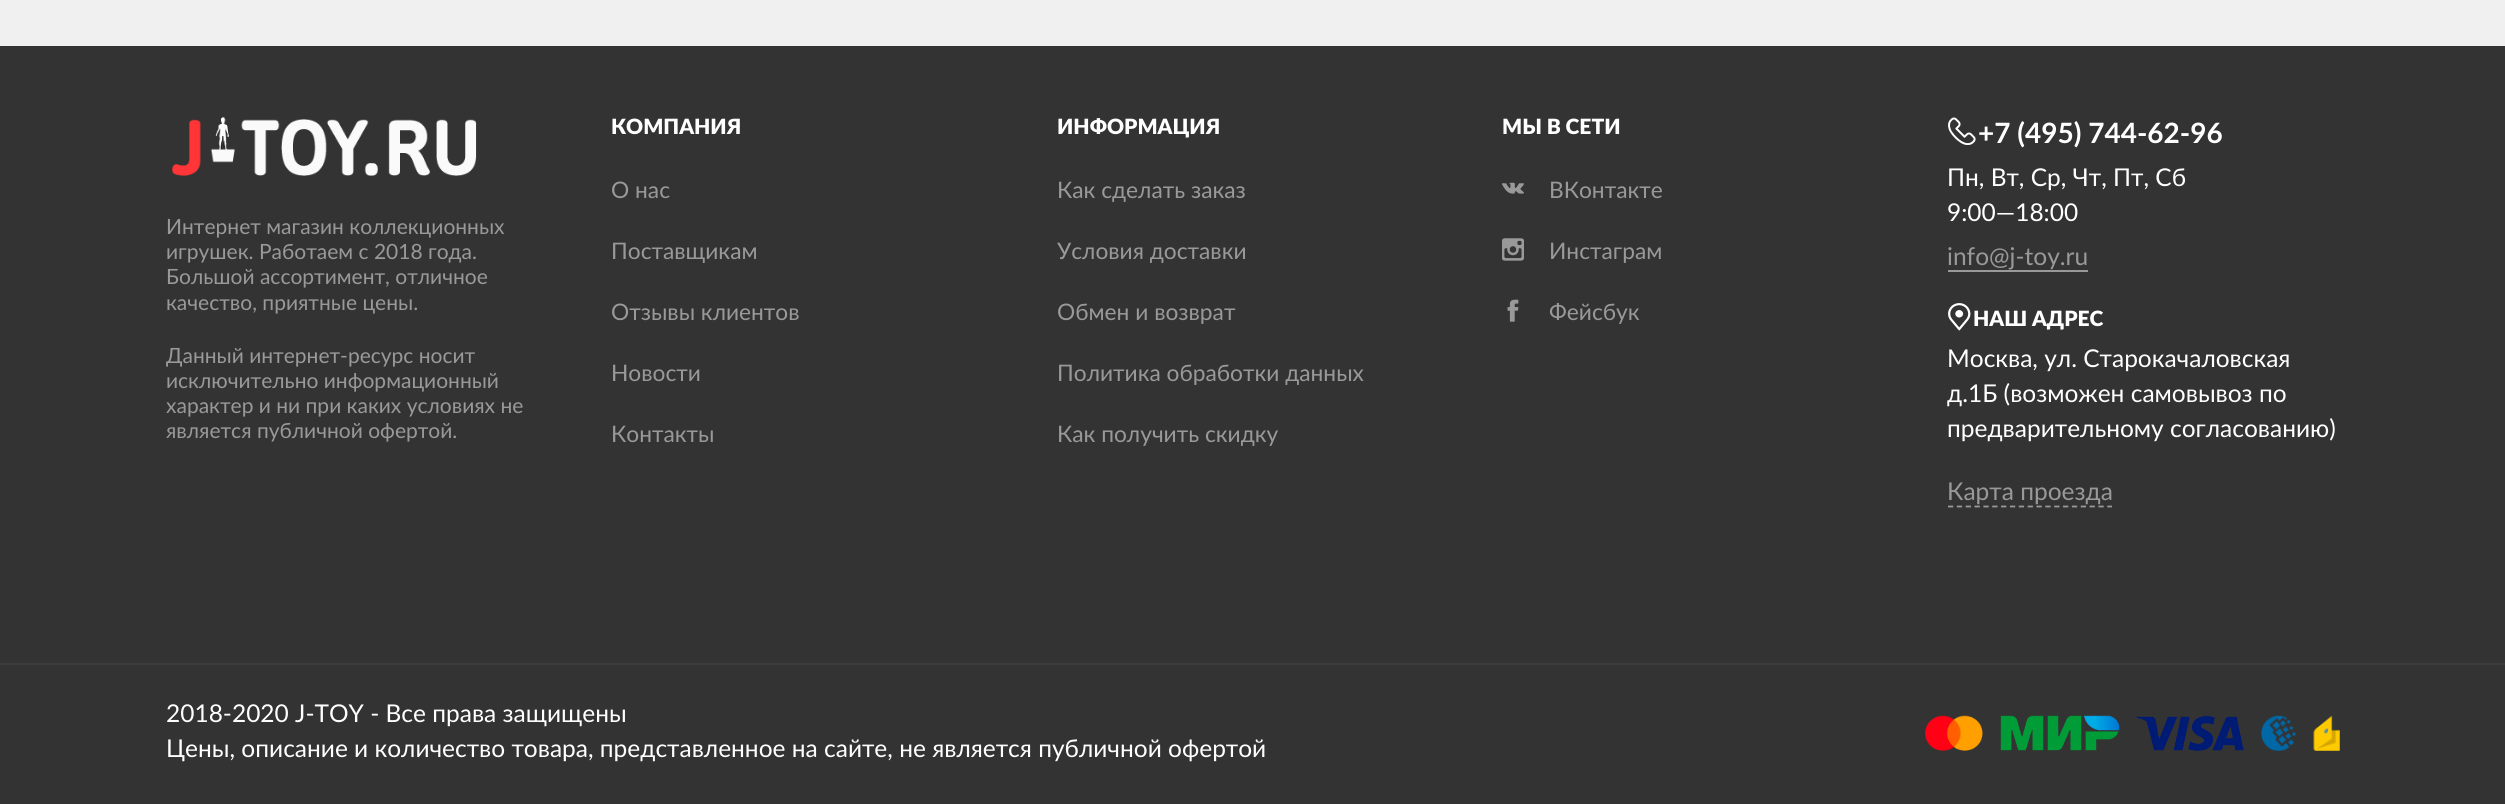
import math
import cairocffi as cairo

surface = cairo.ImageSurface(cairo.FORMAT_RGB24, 2505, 804)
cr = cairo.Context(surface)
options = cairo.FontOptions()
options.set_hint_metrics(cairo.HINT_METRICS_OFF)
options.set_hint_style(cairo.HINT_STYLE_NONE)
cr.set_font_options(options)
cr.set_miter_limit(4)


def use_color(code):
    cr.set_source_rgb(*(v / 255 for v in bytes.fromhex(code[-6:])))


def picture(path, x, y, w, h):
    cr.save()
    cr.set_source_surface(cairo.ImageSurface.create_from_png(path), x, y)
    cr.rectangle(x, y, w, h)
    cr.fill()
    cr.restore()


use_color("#f0f0f0")
cr.paint()
use_color("#333333")
cr.rectangle(0, 46, 2505, 758)
cr.fill()
use_color("#3c3c3c")
cr.rectangle(0, 663, 2505, 2)
cr.fill()
picture("img1.png", 172, 117, 305, 59)
cr.select_font_face("Lato")
cr.set_font_size(21)
use_color("#999999")
cr.move_to(166, 234)
cr.show_text("Интернет магазин коллекционных")
cr.move_to(166, 259)
cr.show_text("игрушек. Работаем с 2018 года.")
cr.move_to(166, 284)
cr.show_text("Большой ассортимент, отличное")
cr.move_to(166, 310)
cr.show_text("качество, приятные цены.")
cr.move_to(166, 363)
cr.show_text("Данный интернет-ресурс носит")
cr.move_to(166, 388)
cr.show_text("исключительно информационный")
cr.move_to(166, 413)
cr.show_text("характер и ни при каких условиях не")
cr.move_to(166, 438)
cr.show_text("является публичной офертой.")
cr.select_font_face("Lato Black")
use_color("#ffffff")
cr.move_to(611, 134)
cr.show_text("КОМПАНИЯ")
cr.select_font_face("Lato")
cr.set_font_size(22.75)
use_color("#999999")
cr.move_to(611, 198)
cr.show_text("О нас")
cr.move_to(611, 259)
cr.show_text("Поставщикам")
cr.move_to(611, 320)
cr.show_text("Отзывы клиентов")
cr.move_to(611, 381)
cr.show_text("Новости")
cr.move_to(611, 442)
cr.show_text("Контакты")
cr.select_font_face("Lato Black")
cr.set_font_size(21)
use_color("#ffffff")
cr.move_to(1057, 134)
cr.show_text("ИНФОРМАЦИЯ")
cr.select_font_face("Lato")
cr.set_font_size(22.75)
use_color("#999999")
cr.move_to(1057, 198)
cr.show_text("Как сделать заказ")
cr.move_to(1057, 259)
cr.show_text("Условия доставки")
cr.move_to(1057, 320)
cr.show_text("Обмен и возврат")
cr.move_to(1057, 381)
cr.show_text("Политика обработки данных")
cr.move_to(1057, 442)
cr.show_text("Как получить скидку")
cr.select_font_face("Lato Black")
cr.set_font_size(21)
use_color("#ffffff")
cr.move_to(1502, 134)
cr.show_text("МЫ В СЕТИ")
picture("img2.png", 1502, 182, 22, 12)
cr.select_font_face("Lato")
cr.set_font_size(22.75)
use_color("#999999")
cr.move_to(1549, 198)
cr.show_text("ВКонтакте")
picture("img3.png", 1502, 238, 22, 23)
cr.move_to(1549, 259)
cr.show_text("Инстаграм")
picture("img4.png", 1507, 299, 12, 23)
cr.move_to(1549, 320)
cr.show_text("Фейсбук")
picture("img5.png", 1948, 117, 28, 28)
cr.select_font_face("Lato", cairo.FONT_SLANT_NORMAL, cairo.FONT_WEIGHT_BOLD)
cr.set_font_size(28)
use_color("#ffffff")
cr.move_to(1978, 143)
cr.show_text("+7 (495) 744-62-96")
cr.select_font_face("Lato")
cr.set_font_size(24.5)
cr.move_to(1947, 186)
cr.show_text("Пн, Вт, Ср, Чт, Пт, Сб")
cr.move_to(1947, 221)
cr.show_text("9:00—18:00")
use_color("#999999")
cr.move_to(1947, 265)
cr.show_text("info@j-toy.ru")
cr.rectangle(1948, 270, 140, 2)
cr.fill()
picture("img6.png", 1948, 303, 23, 28)
cr.select_font_face("Lato Black")
cr.set_font_size(21)
use_color("#ffffff")
cr.move_to(1973, 326)
cr.show_text("НАШ АДРЕС")
cr.select_font_face("Lato")
cr.set_font_size(24.5)
cr.move_to(1947, 367)
cr.show_text("Москва, ул. Старокачаловская")
cr.move_to(1947, 402)
cr.show_text("д.1Б (возможен самовывоз по")
cr.move_to(1947, 437)
cr.show_text("предварительному согласованию)")
use_color("#999999")
cr.move_to(1947, 500)
cr.show_text("Карта проезда")
cr.new_path()
cr.move_to(1948, 506.5)
cr.line_to(2112, 506.5)
cr.set_line_width(1.8)
cr.set_dash([5.25, 3.6])
cr.stroke()
use_color("#ffffff")
cr.move_to(166, 722)
cr.show_text("2018-2020 J-TOY - Все права защищены")
cr.move_to(166, 757)
cr.show_text("Цены, описание и количество товара, представленное на сайте, не является публичной офертой")
picture("img7.png", 1925, 715, 58, 36)
picture("img8.png", 2000, 715, 120, 36)
picture("img9.png", 2136, 715, 108, 36)
picture("img10.png", 2261, 715, 35, 36)
picture("img11.png", 2313, 715, 27, 36)
surface.write_to_png("result.png")
